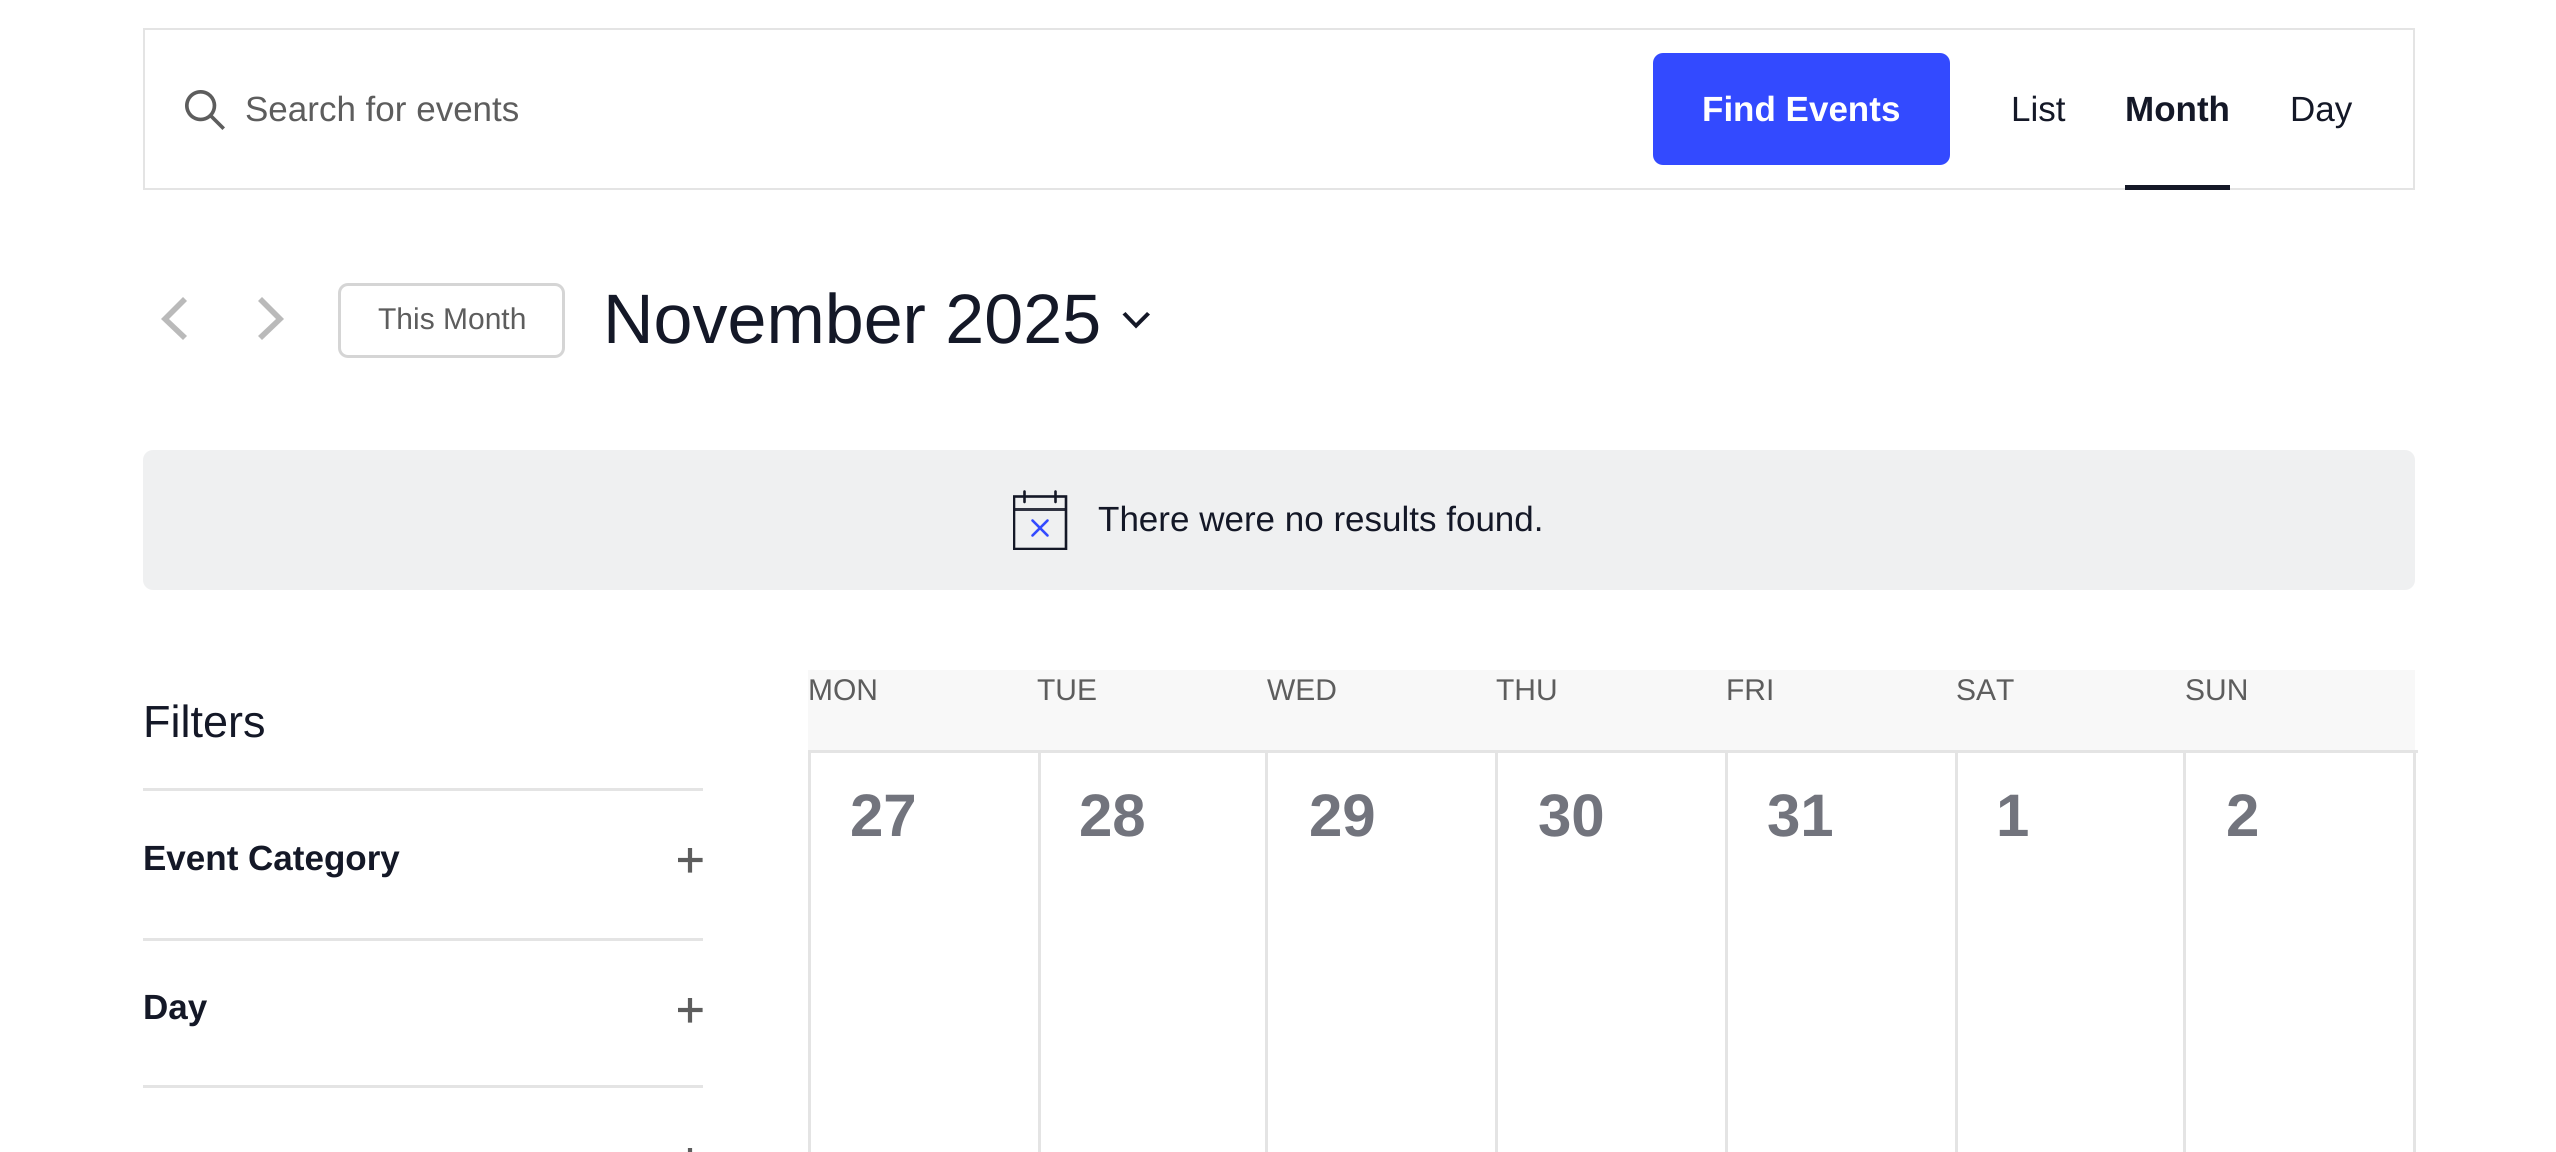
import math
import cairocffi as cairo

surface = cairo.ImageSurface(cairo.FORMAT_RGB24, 2556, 1152)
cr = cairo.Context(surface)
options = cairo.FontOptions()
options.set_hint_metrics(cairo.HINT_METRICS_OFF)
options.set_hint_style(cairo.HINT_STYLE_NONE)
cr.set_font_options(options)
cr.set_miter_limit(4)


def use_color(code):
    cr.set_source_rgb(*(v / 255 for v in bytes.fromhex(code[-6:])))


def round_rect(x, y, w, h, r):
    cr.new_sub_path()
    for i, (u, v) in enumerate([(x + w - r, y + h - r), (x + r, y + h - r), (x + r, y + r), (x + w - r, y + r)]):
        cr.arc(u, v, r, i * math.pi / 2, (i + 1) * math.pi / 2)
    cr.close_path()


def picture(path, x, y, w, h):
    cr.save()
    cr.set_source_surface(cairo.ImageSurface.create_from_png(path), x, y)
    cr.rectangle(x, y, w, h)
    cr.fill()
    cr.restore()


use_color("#ffffff")
cr.paint()
cr.rectangle(144.5, 29.5, 2269, 159)
use_color("#e4e4e4")
cr.set_line_width(3)
cr.stroke()
use_color("#ffffff")
cr.rectangle(145, 30, 2268, 158)
cr.fill()
picture("img1.png", 185, 90, 40, 40)
cr.select_font_face("Liberation Sans")
cr.set_font_size(35)
use_color("#5d5d5d")
cr.move_to(245, 121)
cr.show_text("Search for events")
use_color("#334aff")
round_rect(1653, 53, 297, 112, 10)
cr.fill()
cr.select_font_face("Liberation Sans", cairo.FONT_SLANT_NORMAL, cairo.FONT_WEIGHT_BOLD)
use_color("#ffffff")
cr.move_to(1702, 121)
cr.show_text("Find Events")
cr.select_font_face("Liberation Sans")
use_color("#141827")
cr.move_to(2011, 121)
cr.show_text("List")
cr.select_font_face("Liberation Sans", cairo.FONT_SLANT_NORMAL, cairo.FONT_WEIGHT_BOLD)
cr.move_to(2125, 121)
cr.show_text("Month")
cr.rectangle(2125, 185, 105, 5)
cr.fill()
cr.select_font_face("Liberation Sans")
cr.move_to(2290, 121)
cr.show_text("Day")
use_color("#bababa")
cr.new_path()
cr.move_to(187, 336)
cr.line_to(183, 340)
cr.line_to(161, 319)
cr.line_to(183, 297)
cr.line_to(187, 301)
cr.line_to(169, 319)
cr.close_path()
cr.fill()
cr.new_path()
cr.move_to(258, 301)
cr.line_to(262, 297)
cr.line_to(284, 319)
cr.line_to(262, 340)
cr.line_to(258, 336)
cr.line_to(276, 319)
cr.close_path()
cr.fill()
round_rect(339.5, 284.5, 224, 72, 8.5)
use_color("#d5d5d5")
cr.stroke()
cr.set_font_size(30)
use_color("#5d5d5d")
cr.move_to(378, 329)
cr.show_text("This Month")
cr.set_font_size(70)
use_color("#141827")
cr.move_to(603, 343)
cr.show_text("November 2025")
cr.set_fill_rule(cairo.FILL_RULE_EVEN_ODD)
cr.new_path()
cr.move_to(1125.5, 312)
cr.line_to(1136, 323)
cr.line_to(1147, 312)
cr.line_to(1150, 314.5)
cr.line_to(1136, 328.5)
cr.line_to(1122.5, 314.5)
cr.close_path()
cr.fill()
use_color("#eff0f1")
round_rect(143, 450, 2272, 140, 10)
cr.fill()
cr.save()
cr.set_fill_rule(cairo.FILL_RULE_WINDING)
cr.rectangle(1013, 490, 55, 60)
cr.clip()
cr.new_path()
cr.move_to(1014, 496.5)
cr.line_to(1066, 496.5)
cr.line_to(1066, 549)
cr.line_to(1014, 549)
cr.close_path()
use_color("#141827")
cr.set_line_width(2.6)
cr.stroke()
cr.restore()
cr.new_path()
cr.move_to(1032.5, 520.5)
cr.line_to(1047.5, 535.5)
cr.move_to(1047.5, 520.5)
cr.line_to(1032.5, 535.5)
use_color("#334aff")
cr.set_line_width(2.6)
cr.set_line_cap(cairo.LINE_CAP_ROUND)
cr.stroke()
cr.new_path()
cr.move_to(1024.5, 491.5)
cr.line_to(1024.5, 502)
cr.move_to(1055.5, 491.5)
cr.line_to(1055.5, 502)
use_color("#141827")
cr.stroke()
cr.set_source_rgba(0.078, 0.094, 0.153, 0.87)
cr.rectangle(1013, 508, 54, 3)
cr.fill()
cr.set_font_size(35)
use_color("#141827")
cr.move_to(1098, 531)
cr.show_text("There were no results found.")
cr.set_font_size(45)
cr.move_to(143, 737)
cr.show_text("Filters")
use_color("#e4e4e4")
cr.rectangle(143, 788, 560, 3)
cr.fill()
cr.select_font_face("Liberation Sans", cairo.FONT_SLANT_NORMAL, cairo.FONT_WEIGHT_BOLD)
cr.set_font_size(35)
use_color("#141827")
cr.move_to(143, 870)
cr.show_text("Event Category")
cr.save()
cr.set_fill_rule(cairo.FILL_RULE_WINDING)
cr.rectangle(678, 848, 25, 25)
cr.clip()
cr.new_path()
cr.move_to(700.5, 860)
cr.line_to(679.5, 860)
cr.move_to(690, 849.5)
cr.line_to(690, 870.5)
use_color("#5d5d5d")
cr.set_line_width(4.2)
cr.set_line_cap(cairo.LINE_CAP_SQUARE)
cr.stroke()
cr.restore()
use_color("#e4e4e4")
cr.rectangle(143, 938, 560, 3)
cr.fill()
use_color("#141827")
cr.move_to(143, 1019)
cr.show_text("Day")
cr.save()
cr.set_fill_rule(cairo.FILL_RULE_WINDING)
cr.rectangle(678, 998, 25, 25)
cr.clip()
cr.new_path()
cr.move_to(700.5, 1010)
cr.line_to(679.5, 1010)
cr.move_to(690, 999.5)
cr.line_to(690, 1020.5)
use_color("#5d5d5d")
cr.set_line_width(4.2)
cr.set_line_cap(cairo.LINE_CAP_SQUARE)
cr.stroke()
cr.restore()
use_color("#e4e4e4")
cr.rectangle(143, 1085, 560, 3)
cr.fill()
cr.save()
cr.set_fill_rule(cairo.FILL_RULE_WINDING)
cr.rectangle(678, 1148, 25, 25)
cr.clip()
cr.new_path()
cr.move_to(700.5, 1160)
cr.line_to(679.5, 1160)
cr.move_to(690, 1149.5)
cr.line_to(690, 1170.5)
use_color("#5d5d5d")
cr.set_line_width(4.2)
cr.set_line_cap(cairo.LINE_CAP_SQUARE)
cr.stroke()
cr.restore()
use_color("#f8f8f8")
cr.rectangle(808, 670, 1607, 80)
cr.fill()
cr.select_font_face("Liberation Sans")
cr.set_font_size(30)
use_color("#5d5d5d")
cr.move_to(808, 700)
cr.show_text("MON")
cr.move_to(1037, 700)
cr.show_text("TUE")
cr.move_to(1267, 700)
cr.show_text("WED")
cr.move_to(1496, 700)
cr.show_text("THU")
cr.move_to(1726, 700)
cr.show_text("FRI")
cr.move_to(1956, 700)
cr.show_text("SAT")
cr.move_to(2185, 700)
cr.show_text("SUN")
use_color("#e4e4e4")
cr.rectangle(808, 750, 1610, 3)
cr.fill()
cr.rectangle(808, 753, 3, 399)
cr.fill()
cr.rectangle(1038, 753, 3, 399)
cr.fill()
cr.select_font_face("Liberation Sans", cairo.FONT_SLANT_NORMAL, cairo.FONT_WEIGHT_BOLD)
cr.set_font_size(60)
use_color("#72747d")
cr.move_to(850, 836)
cr.show_text("27")
use_color("#e4e4e4")
cr.rectangle(1265, 753, 3, 399)
cr.fill()
use_color("#72747d")
cr.move_to(1079, 836)
cr.show_text("28")
use_color("#e4e4e4")
cr.rectangle(1495, 753, 3, 399)
cr.fill()
use_color("#72747d")
cr.move_to(1309, 836)
cr.show_text("29")
use_color("#e4e4e4")
cr.rectangle(1725, 753, 3, 399)
cr.fill()
use_color("#72747d")
cr.move_to(1538, 836)
cr.show_text("30")
use_color("#e4e4e4")
cr.rectangle(1955, 753, 3, 399)
cr.fill()
use_color("#72747d")
cr.move_to(1767, 836)
cr.show_text("31")
use_color("#e4e4e4")
cr.rectangle(2183, 753, 3, 399)
cr.fill()
use_color("#72747d")
cr.move_to(1996, 836)
cr.show_text("1")
use_color("#e4e4e4")
cr.rectangle(2413, 753, 3, 399)
cr.fill()
use_color("#72747d")
cr.move_to(2226, 836)
cr.show_text("2")
surface.write_to_png("result.png")
